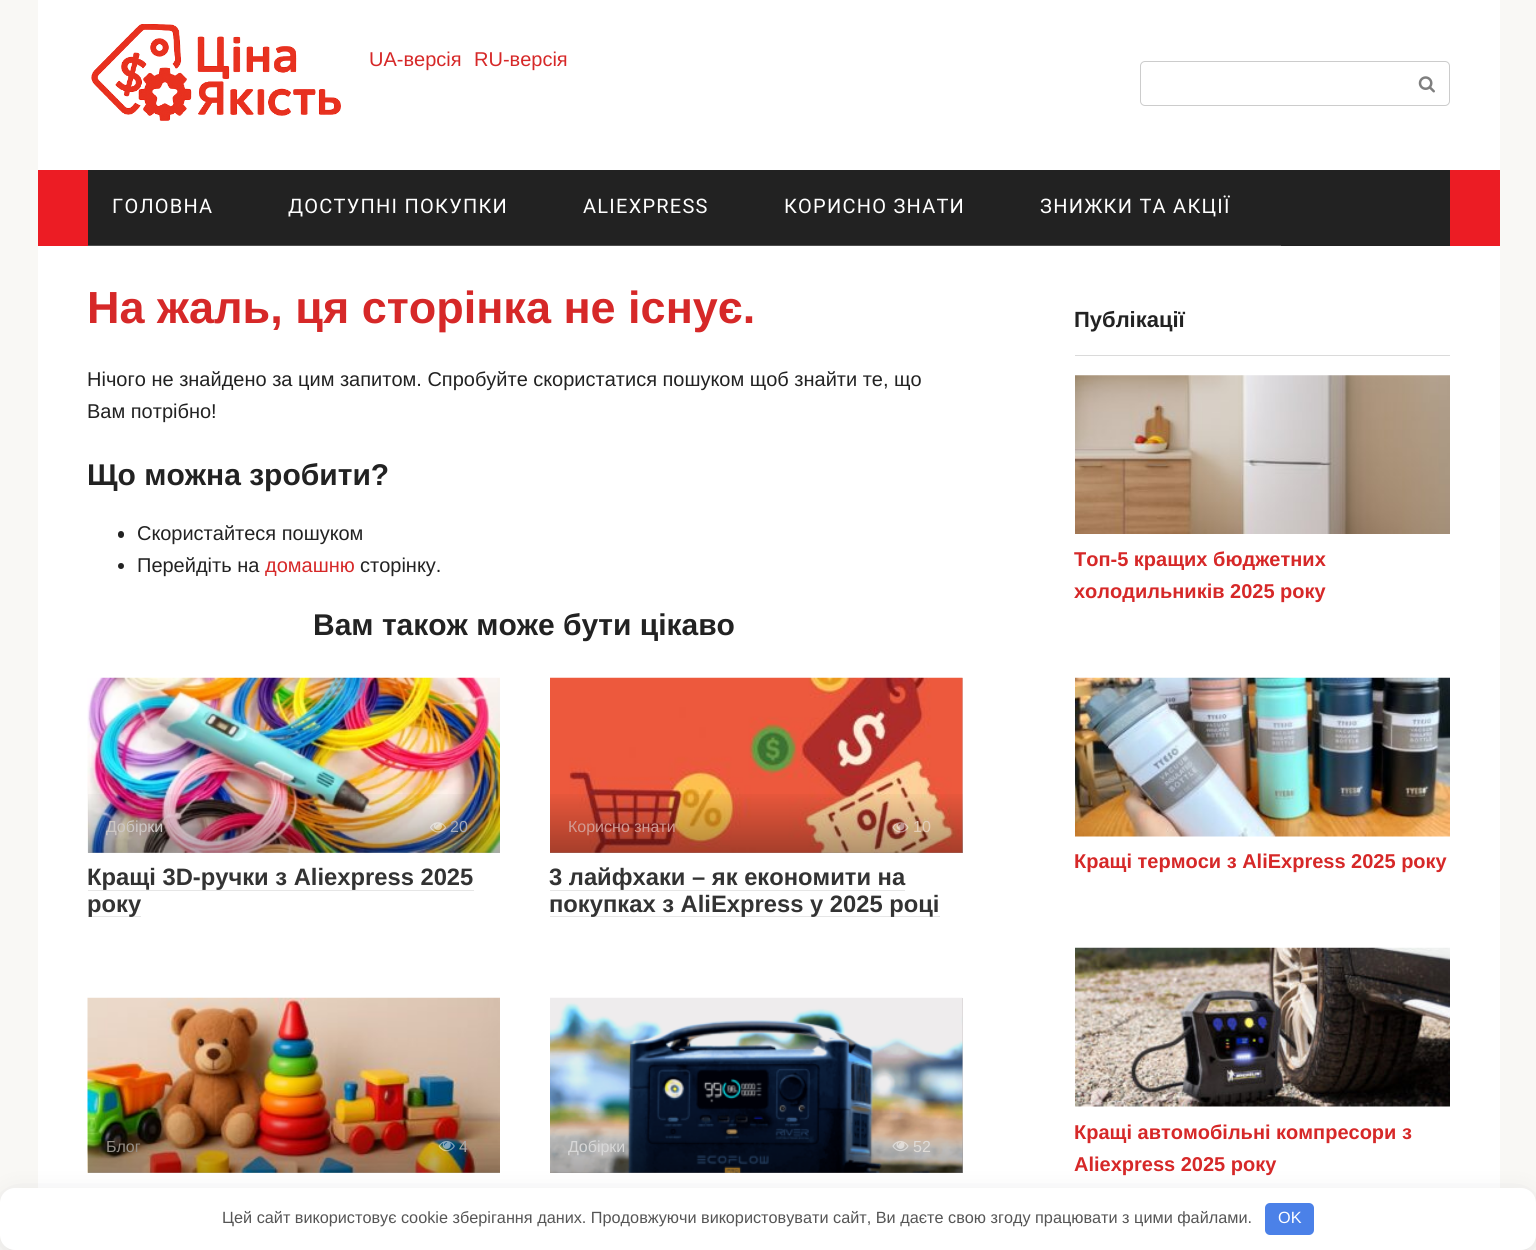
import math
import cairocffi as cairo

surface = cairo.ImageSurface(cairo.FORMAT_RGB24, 1536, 1250)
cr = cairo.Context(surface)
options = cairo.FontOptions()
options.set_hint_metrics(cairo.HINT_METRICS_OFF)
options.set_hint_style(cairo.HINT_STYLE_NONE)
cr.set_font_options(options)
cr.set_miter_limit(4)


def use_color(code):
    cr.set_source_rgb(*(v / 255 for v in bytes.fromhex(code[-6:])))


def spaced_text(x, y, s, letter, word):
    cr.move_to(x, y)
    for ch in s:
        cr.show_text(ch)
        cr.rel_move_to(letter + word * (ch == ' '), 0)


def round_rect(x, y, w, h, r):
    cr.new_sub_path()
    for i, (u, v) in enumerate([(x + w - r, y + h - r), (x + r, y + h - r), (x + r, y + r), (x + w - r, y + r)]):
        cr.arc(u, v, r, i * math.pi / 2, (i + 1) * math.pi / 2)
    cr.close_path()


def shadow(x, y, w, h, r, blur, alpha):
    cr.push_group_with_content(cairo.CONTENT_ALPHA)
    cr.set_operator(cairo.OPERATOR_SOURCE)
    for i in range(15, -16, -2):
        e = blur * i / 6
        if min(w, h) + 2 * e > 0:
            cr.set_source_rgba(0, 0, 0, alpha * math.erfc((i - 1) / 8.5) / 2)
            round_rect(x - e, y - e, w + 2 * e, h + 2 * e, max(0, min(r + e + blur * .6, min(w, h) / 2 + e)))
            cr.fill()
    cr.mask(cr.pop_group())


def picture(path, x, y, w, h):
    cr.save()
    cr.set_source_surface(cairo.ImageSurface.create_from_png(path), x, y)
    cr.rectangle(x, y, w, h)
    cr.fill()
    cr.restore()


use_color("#f9f8f5")
cr.paint()
use_color("#ffffff")
cr.rectangle(38, 0, 1462, 170)
cr.fill()
picture("img1.png", 91, 24, 250, 97)
cr.select_font_face("Liberation Sans")
cr.set_font_size(20)
use_color("#d62828")
cr.move_to(369, 66)
cr.show_text("UA-версія")
cr.move_to(474, 66)
cr.show_text("RU-версія")
round_rect(1140.5, 61.5, 309, 44, 4.5)
use_color("#cccccc")
cr.set_line_width(1)
cr.stroke()
picture("img2.png", 1418, 76, 17, 17)
use_color("#ec1c24")
cr.rectangle(38, 170, 1462, 76)
cr.fill()
use_color("#222222")
cr.rectangle(88, 170, 1362, 76)
cr.fill()
use_color("#4e4e4e")
cr.rectangle(88, 245, 1193, 1)
cr.fill()
cr.select_font_face("Roboto")
use_color("#ffffff")
spaced_text(112, 213, "ГОЛОВНА", 1.25, 0)
spaced_text(288, 213, "ДОСТУПНІ ПОКУПКИ", 1.25, 0)
spaced_text(583, 213, "ALIEXPRESS", 1.25, 0)
spaced_text(784, 213, "КОРИСНО ЗНАТИ", 1.25, 0)
spaced_text(1040, 213, "ЗНИЖКИ ТА АКЦІЇ", 1.25, 0)
cr.rectangle(38, 246, 1462, 942)
cr.fill()
cr.select_font_face("Liberation Sans", cairo.FONT_SLANT_NORMAL, cairo.FONT_WEIGHT_BOLD)
cr.set_font_size(45)
use_color("#d62828")
cr.move_to(87, 323)
cr.show_text("На жаль, ця сторінка не існує.")
cr.select_font_face("Liberation Sans")
cr.set_font_size(20)
use_color("#222222")
cr.move_to(87, 386)
cr.show_text("Нічого не знайдено за цим запитом. Спробуйте скористатися пошуком щоб знайти те, що")
cr.move_to(87, 418)
cr.show_text("Вам потрібно!")
cr.select_font_face("Liberation Sans", cairo.FONT_SLANT_NORMAL, cairo.FONT_WEIGHT_BOLD)
cr.set_font_size(30)
cr.move_to(87, 485)
cr.show_text("Що можна зробити?")
round_rect(118, 531, 6, 7, 3)
cr.fill()
cr.select_font_face("Liberation Sans")
cr.set_font_size(20)
cr.move_to(137, 540)
cr.show_text("Скористайтеся пошуком")
cr.new_path()
cr.arc(121, 566, 3, 0, 2 * math.pi)
cr.fill()
cr.move_to(137, 572)
cr.show_text("Перейдіть на")
use_color("#d62828")
cr.move_to(265, 572)
cr.show_text("домашню")
use_color("#222222")
cr.move_to(360, 572)
cr.show_text("сторінку.")
cr.select_font_face("Liberation Sans", cairo.FONT_SLANT_NORMAL, cairo.FONT_WEIGHT_BOLD)
cr.set_font_size(30)
cr.move_to(313, 635)
cr.show_text("Вам також може бути цікаво")
picture("img3.png", 87, 677, 413, 176)
gradient = cairo.LinearGradient(294, 789, 294, 853)
gradient.add_color_stop_rgba(0, 0, 0, 0, 0)
gradient.add_color_stop_rgba(1, 0, 0, 0, 0.3)
cr.set_source(gradient)
cr.rectangle(88, 794, 412, 59)
cr.fill()
cr.select_font_face("Liberation Sans")
cr.set_font_size(16)
use_color("#cdc7c5")
cr.move_to(106, 832)
cr.show_text("Добірки")
picture("img4.png", 430, 822, 16, 11)
use_color("#a5abba")
cr.move_to(450, 832)
cr.show_text("20")
cr.select_font_face("Liberation Sans", cairo.FONT_SLANT_NORMAL, cairo.FONT_WEIGHT_BOLD)
cr.set_font_size(23.75)
use_color("#333333")
cr.move_to(87, 885)
cr.show_text("Кращі 3D-ручки з Aliexpress 2025")
use_color("#e6e6e6")
cr.rectangle(88, 890, 386, 1)
cr.fill()
cr.rectangle(88, 916, 53, 1)
cr.fill()
use_color("#333333")
cr.move_to(87, 912)
cr.show_text("року")
use_color("#d0cbcb")
cr.rectangle(550, 678, 413, 175)
cr.fill()
picture("img5.png", 550, 677, 413, 176)
gradient = cairo.LinearGradient(756, 789, 756, 853)
gradient.add_color_stop_rgba(0, 0, 0, 0, 0)
gradient.add_color_stop_rgba(1, 0, 0, 0, 0.3)
cr.set_source(gradient)
cr.rectangle(550, 794, 413, 59)
cr.fill()
cr.select_font_face("Liberation Sans")
cr.set_font_size(16)
use_color("#d29b93")
cr.move_to(568, 832)
cr.show_text("Корисно знати")
picture("img6.png", 892, 822, 17, 11)
use_color("#e3ceba")
cr.move_to(913, 832)
cr.show_text("10")
cr.select_font_face("Liberation Sans", cairo.FONT_SLANT_NORMAL, cairo.FONT_WEIGHT_BOLD)
cr.set_font_size(23.75)
use_color("#333333")
cr.move_to(549, 885)
cr.show_text("3 лайфхаки – як економити на")
use_color("#e6e6e6")
cr.rectangle(550, 890, 355, 1)
cr.fill()
cr.rectangle(550, 916, 390, 1)
cr.fill()
use_color("#333333")
cr.move_to(549, 912)
cr.show_text("покупках з AliExpress у 2025 році")
picture("img7.png", 87, 997, 413, 176)
gradient = cairo.LinearGradient(294, 1108, 294, 1173)
gradient.add_color_stop_rgba(0, 0, 0, 0, 0)
gradient.add_color_stop_rgba(1, 0, 0, 0, 0.3)
cr.set_source(gradient)
cr.rectangle(88, 1113, 412, 60)
cr.fill()
cr.select_font_face("Liberation Sans")
cr.set_font_size(16)
use_color("#969089")
cr.move_to(106, 1152)
cr.show_text("Блог")
picture("img8.png", 438, 1141, 17, 11)
use_color("#acaaaa")
cr.move_to(459, 1152)
cr.show_text("4")
use_color("#d0cbcb")
cr.rectangle(550, 998, 413, 175)
cr.fill()
picture("img9.png", 550, 997, 413, 176)
gradient = cairo.LinearGradient(756, 1108, 756, 1173)
gradient.add_color_stop_rgba(0, 0, 0, 0, 0)
gradient.add_color_stop_rgba(1, 0, 0, 0, 0.3)
cr.set_source(gradient)
cr.rectangle(550, 1113, 413, 60)
cr.fill()
use_color("#d7d7d7")
cr.move_to(568, 1152)
cr.show_text("Добірки")
picture("img10.png", 892, 1141, 17, 11)
use_color("#dfdbd7")
cr.move_to(913, 1152)
cr.show_text("52")
use_color("#dadada")
cr.rectangle(1075, 355, 375, 1)
cr.fill()
cr.select_font_face("Liberation Sans", cairo.FONT_SLANT_NORMAL, cairo.FONT_WEIGHT_BOLD)
cr.set_font_size(22)
use_color("#222222")
cr.move_to(1074, 327)
cr.show_text("Публікації")
picture("img11.png", 1075, 375, 375, 159)
cr.set_font_size(20)
use_color("#d62828")
cr.move_to(1074, 566)
cr.show_text("Топ-5 кращих бюджетних")
cr.move_to(1074, 598)
cr.show_text("холодильників 2025 року")
picture("img12.png", 1075, 677, 375, 160)
cr.move_to(1074, 868)
cr.show_text("Кращі термоси з AliExpress 2025 року")
picture("img13.png", 1075, 947, 375, 160)
cr.move_to(1074, 1139)
cr.show_text("Кращі автомобільні компресори з")
cr.move_to(1074, 1171)
cr.show_text("Aliexpress 2025 року")
use_color("#292c38")
shadow(6, 1198, 1524, 50, 9, 12.5, 0.2)
use_color("#ffffff")
round_rect(0, 1188, 1536, 62, 15)
cr.fill()
cr.select_font_face("Liberation Sans")
cr.set_font_size(16.25)
use_color("#555555")
cr.move_to(222, 1223)
cr.show_text("Цей сайт використовує cookie зберігання даних. Продовжуючи використовувати сайт, Ви даєте свою згоду працювати з цими файлами.")
use_color("#4b81e8")
round_rect(1265, 1203, 49, 32, 5)
cr.fill()
use_color("#ffffff")
cr.move_to(1278, 1223)
cr.show_text("OK")
surface.write_to_png("result.png")
